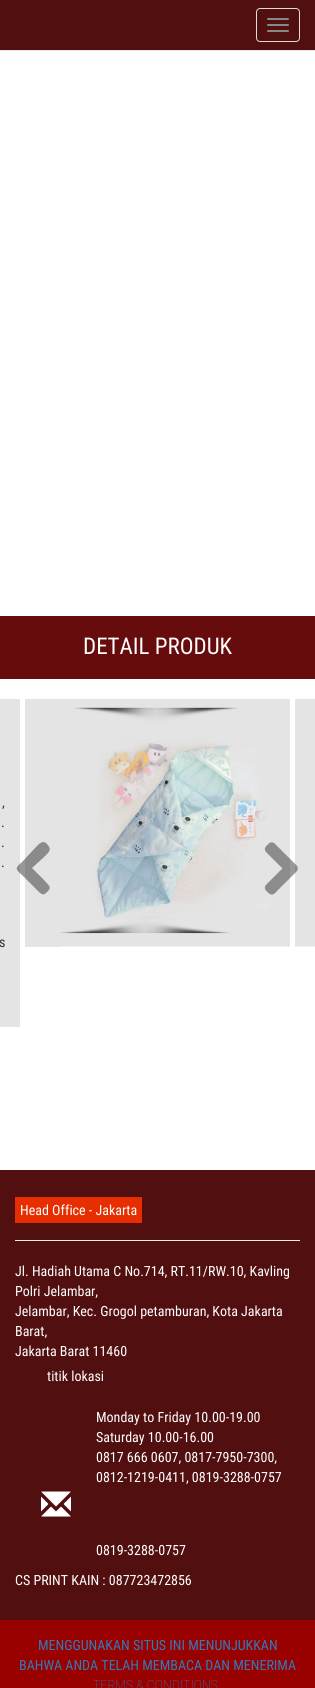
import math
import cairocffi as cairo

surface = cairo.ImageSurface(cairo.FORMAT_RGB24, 315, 1688)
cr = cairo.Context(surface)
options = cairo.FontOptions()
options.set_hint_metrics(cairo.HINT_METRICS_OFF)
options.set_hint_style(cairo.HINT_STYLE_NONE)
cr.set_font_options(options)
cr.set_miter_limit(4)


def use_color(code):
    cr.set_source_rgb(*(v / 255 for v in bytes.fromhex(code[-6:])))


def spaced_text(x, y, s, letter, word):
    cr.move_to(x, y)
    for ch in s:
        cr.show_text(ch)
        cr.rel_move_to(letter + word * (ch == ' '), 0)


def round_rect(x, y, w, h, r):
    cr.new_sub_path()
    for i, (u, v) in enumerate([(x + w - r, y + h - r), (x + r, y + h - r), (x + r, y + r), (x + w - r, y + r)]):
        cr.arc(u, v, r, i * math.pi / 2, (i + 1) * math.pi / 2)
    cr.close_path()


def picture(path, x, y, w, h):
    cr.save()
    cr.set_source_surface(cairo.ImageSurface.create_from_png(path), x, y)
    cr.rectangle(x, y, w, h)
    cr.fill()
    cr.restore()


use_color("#ffffff")
cr.paint()
use_color("#520f10")
cr.rectangle(0, 0, 315, 50)
cr.fill()
use_color("#e7e7e7")
cr.rectangle(0, 50, 315, 1)
cr.fill()
round_rect(256.5, 8.5, 43, 33, 3.5)
use_color("#dddddd")
cr.set_line_width(1)
cr.stroke()
use_color("#888888")
round_rect(267, 18, 22, 2, 1)
cr.fill()
round_rect(267, 24, 22, 2, 1)
cr.fill()
round_rect(267, 30, 22, 2, 1)
cr.fill()
use_color("#660c0c")
cr.rectangle(0, 616, 315, 63)
cr.fill()
cr.select_font_face("Roboto Condensed")
cr.set_font_size(23)
use_color("#ffffff")
cr.move_to(83, 654)
cr.show_text("DETAIL PRODUK")
use_color("#e4e4e4")
cr.rectangle(0, 699, 20, 328)
cr.fill()
cr.set_font_size(14)
use_color("#333333")
spaced_text(2, 807, ",", 0, 47)
spaced_text(1, 827, ".", 0, 6)
spaced_text(1, 847, ".", 0, 6)
spaced_text(1, 867, ".", 0, 3)
spaced_text(-1, 947, "s", 0, 10)
use_color("#e4e4e4")
cr.rectangle(25, 699, 265, 248)
cr.fill()
picture("img1.png", 59, 707, 231, 240)
cr.rectangle(295, 699, 20, 247)
cr.fill()
use_color("#efefef")
cr.rectangle(295, 946, 20, 1)
cr.fill()
cr.set_source_rgba(0.2, 0.2, 0.2, 0.5)
cr.new_path()
cr.move_to(40, 893)
cr.line_to(22, 875)
cr.curve_to(15, 869, 15, 868, 22, 862)
cr.line_to(36, 847)
cr.curve_to(38, 845, 42, 840, 46, 843)
cr.curve_to(53, 850, 49, 852, 43, 858)
cr.line_to(32, 868)
cr.line_to(43, 879)
cr.curve_to(49, 886, 53, 887, 46, 893)
cr.curve_to(45, 894, 43, 895, 42, 894)
cr.close_path()
cr.fill()
picture("img2.png", 264, 842, 34, 53)
use_color("#520f10")
cr.rectangle(0, 1170, 315, 450)
cr.fill()
use_color("#e62e00")
cr.rectangle(15, 1197, 127, 26)
cr.fill()
use_color("#ffffff")
cr.move_to(20, 1215)
cr.show_text("Head Office - Jakarta")
use_color("#eeeeee")
cr.rectangle(15, 1240, 285, 1)
cr.fill()
use_color("#ffffff")
cr.move_to(15, 1276)
cr.show_text("Jl. Hadiah Utama C No.714, RT.11/RW.10, Kavling")
cr.move_to(15, 1296)
cr.show_text("Polri Jelambar,")
cr.move_to(15, 1316)
cr.show_text("Jelambar, Kec. Grogol petamburan, Kota Jakarta")
cr.move_to(15, 1336)
cr.show_text("Barat,")
cr.move_to(15, 1356)
cr.show_text("Jakarta Barat 11460")
cr.move_to(47, 1381)
cr.show_text("titik lokasi")
cr.move_to(96, 1422)
cr.show_text("Monday to Friday 10.00-19.00")
cr.move_to(96, 1442)
cr.show_text("Saturday 10.00-16.00")
cr.move_to(96, 1462)
cr.show_text("0817 666 0607, 0817-7950-7300,")
cr.move_to(96, 1482)
cr.show_text("0812-1219-0411, 0819-3288-0757")
picture("img3.png", 41, 1491, 30, 26)
cr.move_to(96, 1555)
cr.show_text("0819-3288-0757")
cr.move_to(15, 1585)
cr.show_text("CS PRINT KAIN : 087723472856")
use_color("#990000")
cr.rectangle(0, 1620, 315, 68)
cr.fill()
use_color("#337ab7")
cr.move_to(38, 1650)
cr.show_text("MENGGUNAKAN SITUS INI MENUNJUKKAN")
cr.move_to(19, 1670)
cr.show_text("BAHWA ANDA TELAH MEMBACA DAN MENERIMA")
cr.select_font_face("Roboto Condensed Thin")
cr.move_to(93, 1690)
cr.show_text("TERMS & CONDITIONS")
surface.write_to_png("result.png")
